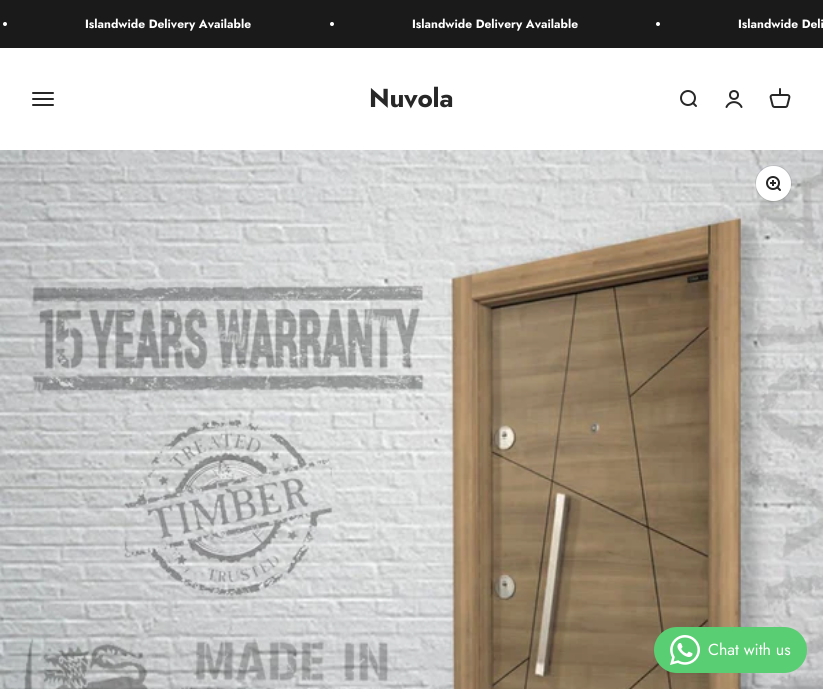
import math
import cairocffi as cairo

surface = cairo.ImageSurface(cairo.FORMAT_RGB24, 823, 689)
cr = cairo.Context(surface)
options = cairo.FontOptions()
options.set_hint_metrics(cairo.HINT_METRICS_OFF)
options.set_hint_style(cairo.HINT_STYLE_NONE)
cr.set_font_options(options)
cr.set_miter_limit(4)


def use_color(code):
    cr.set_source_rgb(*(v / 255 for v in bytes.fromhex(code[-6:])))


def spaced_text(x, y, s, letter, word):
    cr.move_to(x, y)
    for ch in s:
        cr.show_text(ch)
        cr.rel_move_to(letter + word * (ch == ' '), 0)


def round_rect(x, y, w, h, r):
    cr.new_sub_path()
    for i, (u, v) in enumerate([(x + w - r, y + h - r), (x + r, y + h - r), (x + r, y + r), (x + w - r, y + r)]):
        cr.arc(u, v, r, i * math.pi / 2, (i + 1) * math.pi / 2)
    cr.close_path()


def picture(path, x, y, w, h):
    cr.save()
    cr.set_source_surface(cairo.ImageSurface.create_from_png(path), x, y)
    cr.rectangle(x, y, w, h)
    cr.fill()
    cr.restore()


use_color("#ffffff")
cr.paint()
use_color("#1a1a1a")
cr.rectangle(0, 0, 823, 48)
cr.fill()
use_color("#ffffff")
cr.arc(5, 24, 2, 0, 2 * math.pi)
cr.fill()
cr.select_font_face("Jost", cairo.FONT_SLANT_NORMAL, cairo.FONT_WEIGHT_BOLD)
cr.set_font_size(12)
cr.move_to(85, 28)
cr.show_text("Islandwide Delivery Available")
cr.new_path()
cr.arc(332, 24, 2, 0, 2 * math.pi)
cr.fill()
cr.move_to(412, 28)
cr.show_text("Islandwide Delivery Available")
cr.new_path()
cr.arc(658, 24, 2, 0, 2 * math.pi)
cr.fill()
cr.move_to(738, 28)
cr.show_text("Islandwide Deli")
picture("img1.png", 32, 92, 22, 14)
cr.set_font_size(26)
use_color("#272727")
spaced_text(369, 107, "Nuvola", -0.25, 0)
picture("img2.png", 680, 90, 17, 17)
cr.arc(734, 95, 4, 0, 2 * math.pi)
cr.stroke()
cr.new_path()
cr.move_to(726.5, 107)
cr.curve_to(729.5, 100.5, 738.5, 100.5, 741.5, 107)
cr.set_line_cap(cairo.LINE_CAP_ROUND)
cr.stroke()
picture("img3.png", 769, 88, 22, 20)
picture("img4.png", 0, 150, 823, 539)
cr.arc(773.5, 183.5, 18, 0, 2 * math.pi)
cr.set_source_rgba(0.153, 0.153, 0.153, 0.12)
cr.set_line_width(1)
cr.set_line_cap(cairo.LINE_CAP_BUTT)
cr.stroke()
use_color("#ffffff")
cr.arc(773.5, 183.5, 17.5, 0, 2 * math.pi)
cr.fill()
picture("img5.png", 766, 176, 15, 15)
use_color("#59ce72")
round_rect(654, 627, 153, 46, 23)
cr.fill()
picture("img6.png", 670, 635, 30, 30)
cr.select_font_face("Jost")
cr.set_font_size(16)
use_color("#ffffff")
cr.move_to(708, 655)
cr.show_text("Chat with us")
surface.write_to_png("result.png")
